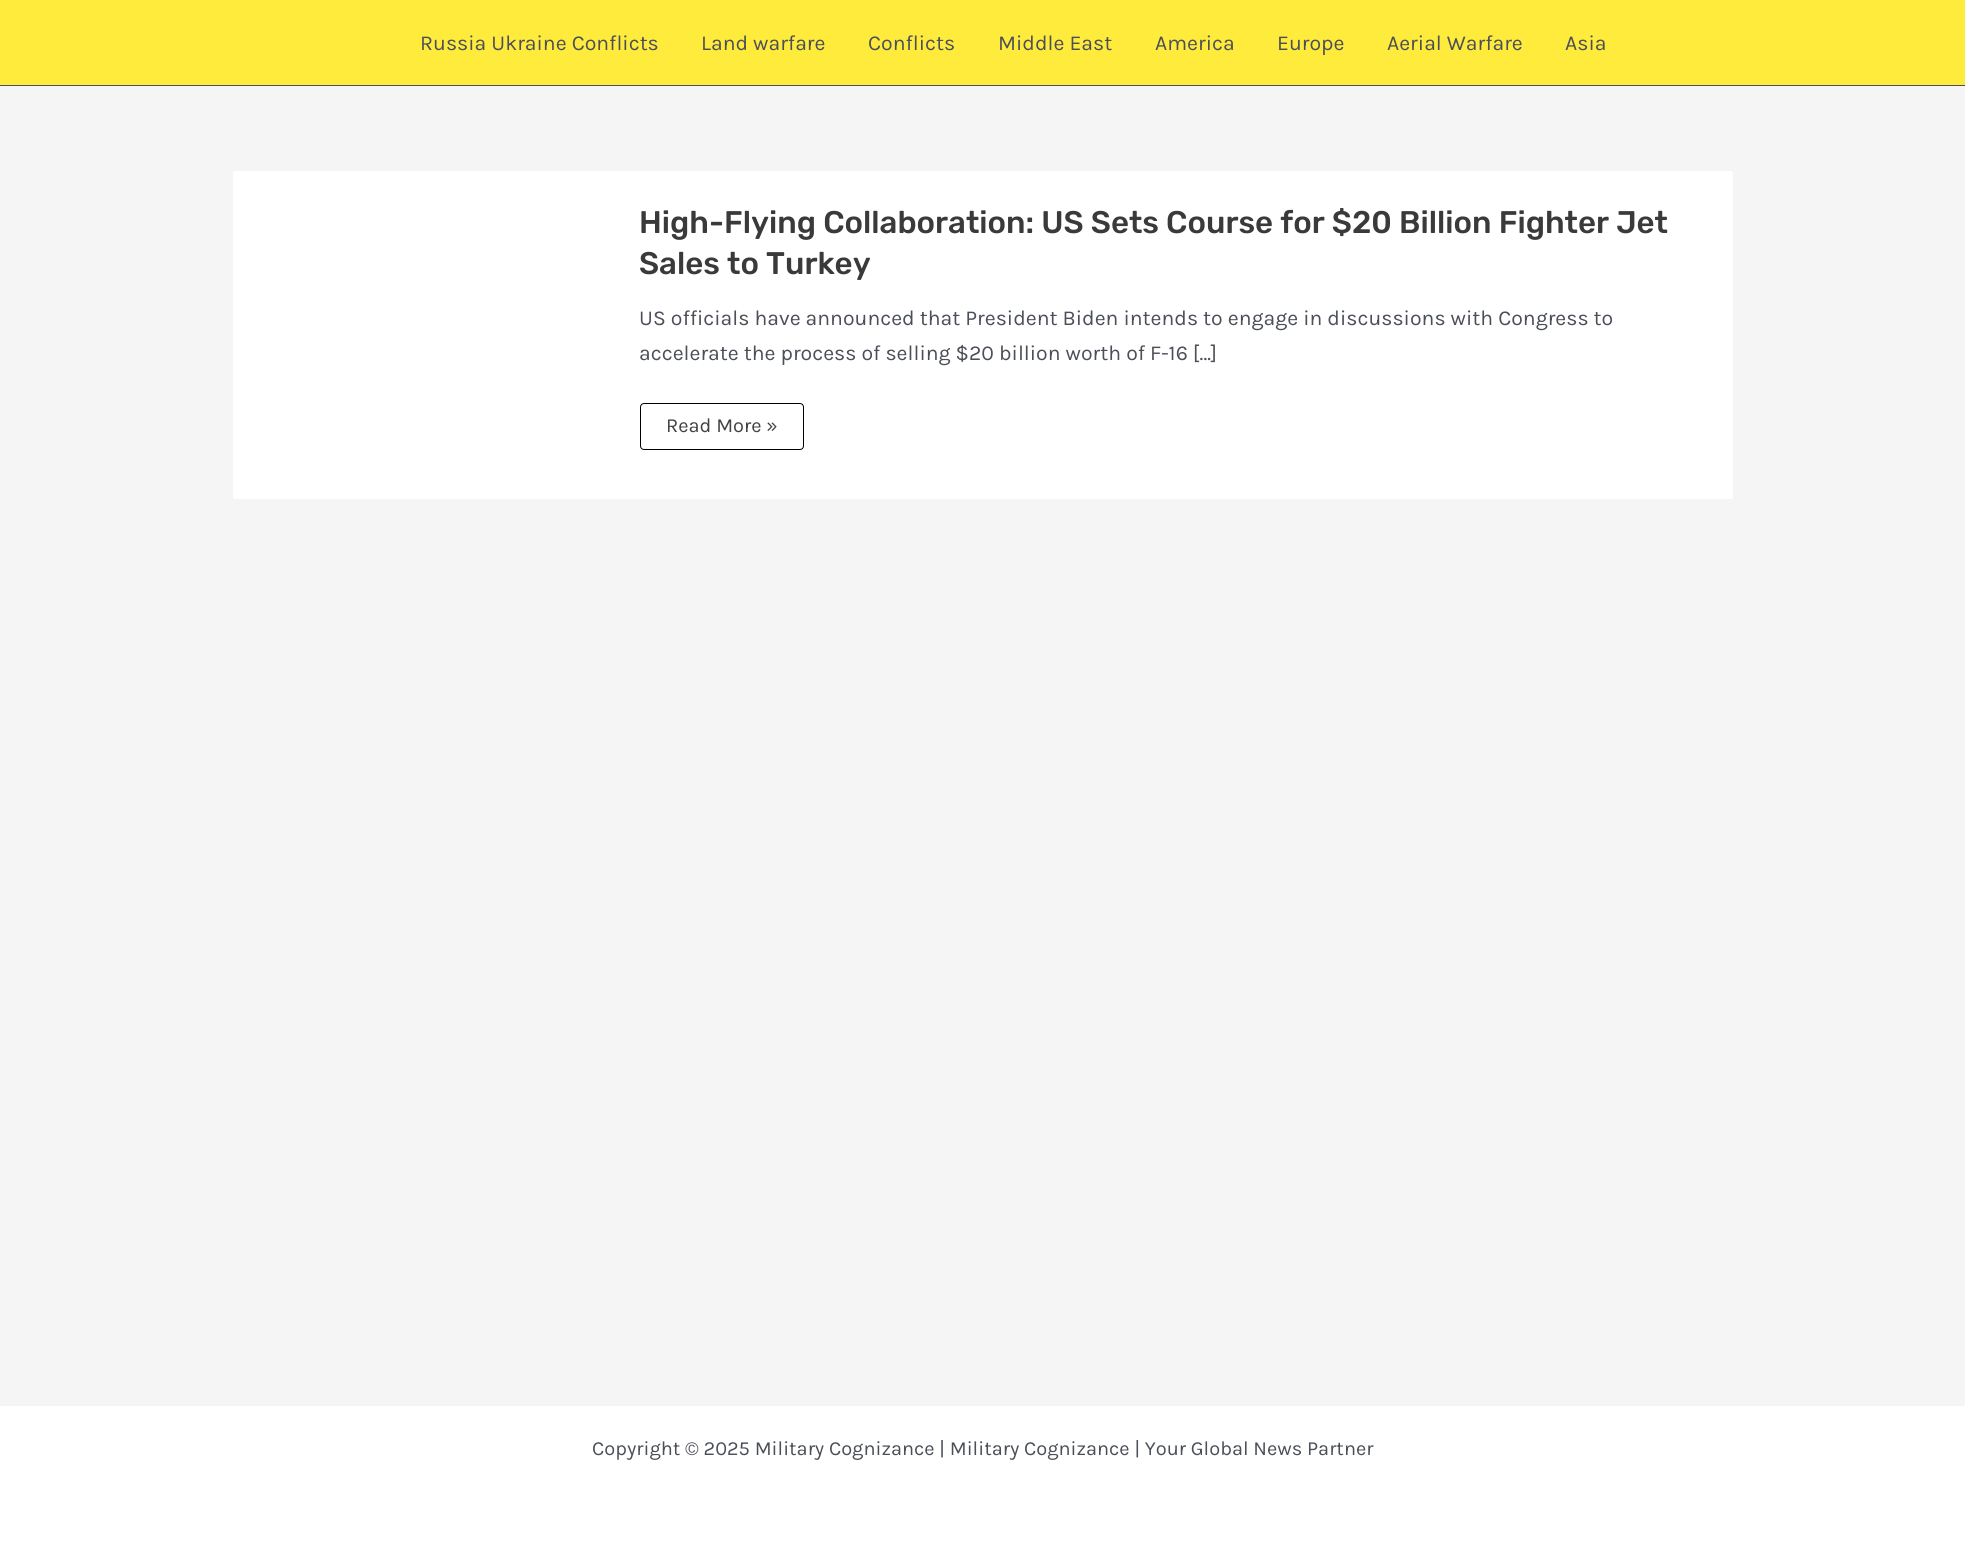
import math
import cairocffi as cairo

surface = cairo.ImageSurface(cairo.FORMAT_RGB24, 1965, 1556)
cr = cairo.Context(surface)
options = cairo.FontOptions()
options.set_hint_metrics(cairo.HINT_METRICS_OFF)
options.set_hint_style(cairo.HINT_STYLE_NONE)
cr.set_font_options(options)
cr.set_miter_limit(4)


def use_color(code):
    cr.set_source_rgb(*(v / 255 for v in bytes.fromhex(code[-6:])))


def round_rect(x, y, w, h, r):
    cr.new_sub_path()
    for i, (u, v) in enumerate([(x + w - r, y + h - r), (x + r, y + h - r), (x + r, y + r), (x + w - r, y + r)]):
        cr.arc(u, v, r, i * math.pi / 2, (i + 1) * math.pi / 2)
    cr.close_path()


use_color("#f5f5f5")
cr.paint()
use_color("#ffeb3c")
cr.rectangle(0, 0, 1965, 85)
cr.fill()
use_color("#4b4f58")
cr.rectangle(0, 85, 1965, 1)
cr.fill()
cr.select_font_face("Karla")
cr.set_font_size(21.25)
cr.move_to(420, 50)
cr.show_text("Russia Ukraine Conflicts")
cr.move_to(701, 50)
cr.show_text("Land warfare")
cr.move_to(868, 50)
cr.show_text("Conflicts")
cr.move_to(998, 50)
cr.show_text("Middle East")
cr.move_to(1155, 50)
cr.show_text("America")
cr.move_to(1277, 50)
cr.show_text("Europe")
cr.move_to(1387, 50)
cr.show_text("Aerial Warfare")
cr.move_to(1565, 50)
cr.show_text("Asia")
use_color("#ffffff")
round_rect(233, 171, 1500, 328, 2.5)
cr.fill()
cr.select_font_face("Rubik Medium")
cr.set_font_size(31.25)
use_color("#3a3a3a")
cr.move_to(639, 233)
cr.show_text("High-Flying Collaboration: US Sets Course for $20 Billion Fighter Jet")
cr.move_to(639, 274)
cr.show_text("Sales to Turkey")
cr.select_font_face("Karla")
cr.set_font_size(21.25)
use_color("#4b4f58")
cr.move_to(639, 325)
cr.show_text("US officials have announced that President Biden intends to engage in discussions with Congress to")
cr.move_to(639, 360)
cr.show_text("accelerate the process of selling $20 billion worth of F-16 […]")
round_rect(640.5, 403.5, 163, 46, 3.5)
use_color("#000000")
cr.set_line_width(1)
cr.stroke()
cr.set_font_size(20)
use_color("#424242")
cr.move_to(666, 432)
cr.show_text("Read More »")
use_color("#ffffff")
cr.rectangle(0, 1406, 1965, 150)
cr.fill()
use_color("#f2f5f7")
cr.rectangle(0, 1405, 1965, 1)
cr.fill()
use_color("#4b4f58")
cr.move_to(592, 1455)
cr.show_text("Copyright © 2025 Military Cognizance | Military Cognizance | Your Global News Partner")
surface.write_to_png("result.png")
